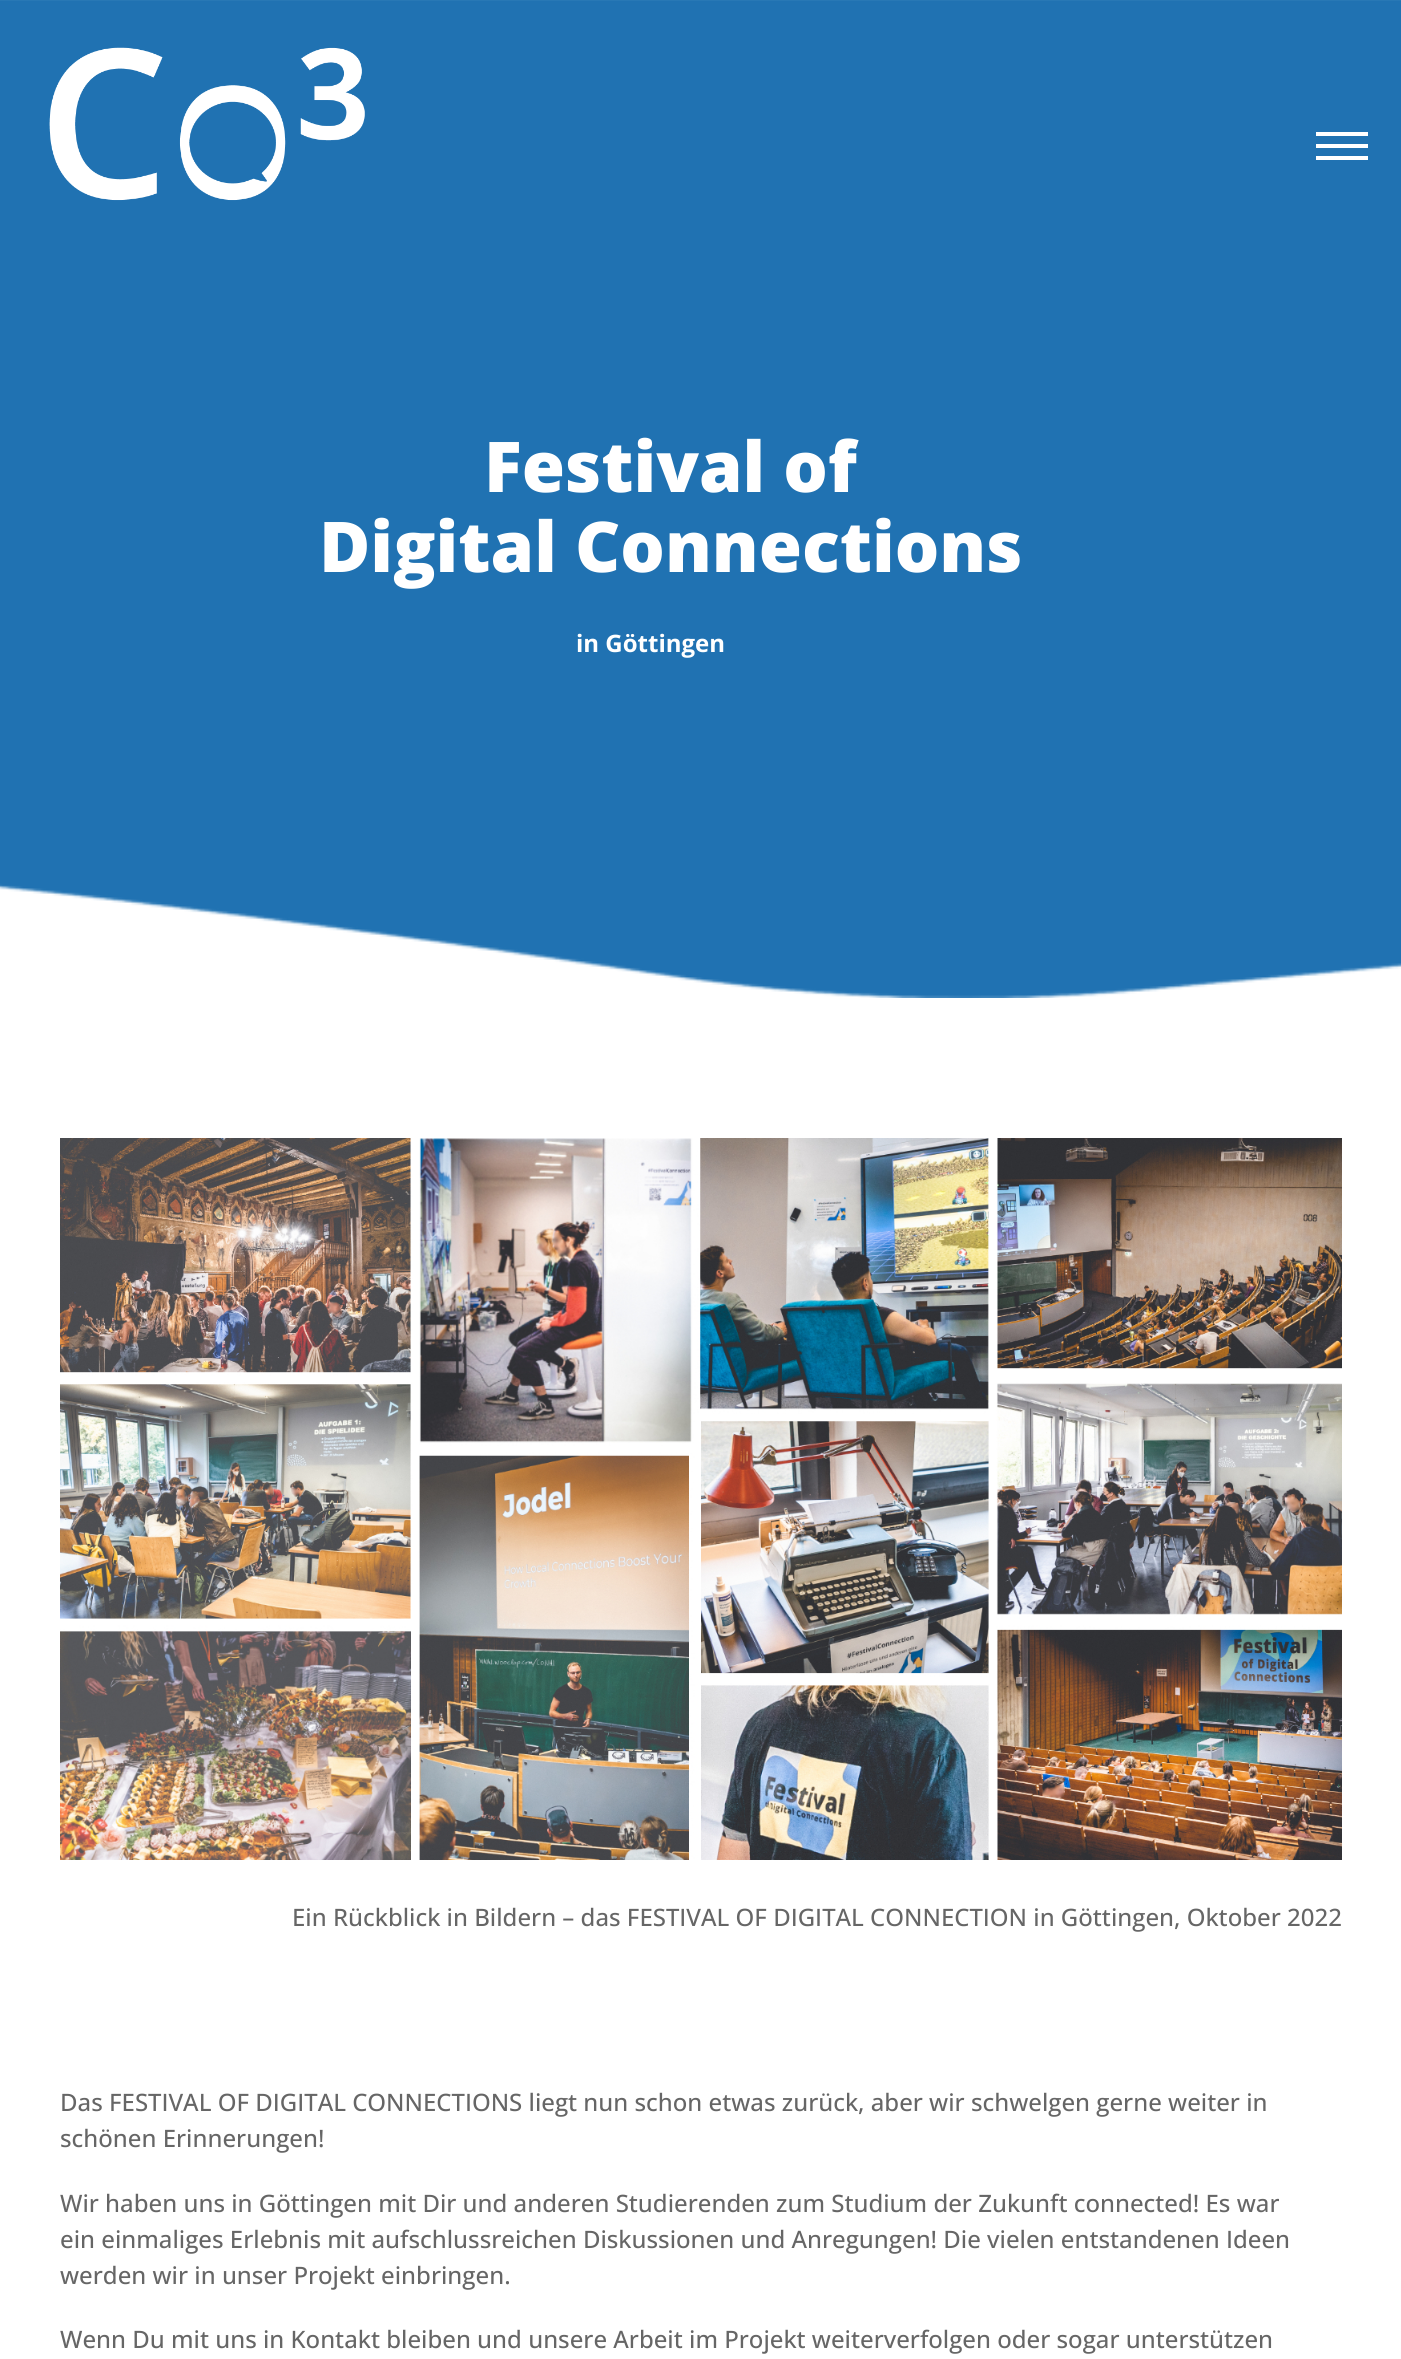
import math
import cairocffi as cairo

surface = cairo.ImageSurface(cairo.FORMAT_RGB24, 1401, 2359)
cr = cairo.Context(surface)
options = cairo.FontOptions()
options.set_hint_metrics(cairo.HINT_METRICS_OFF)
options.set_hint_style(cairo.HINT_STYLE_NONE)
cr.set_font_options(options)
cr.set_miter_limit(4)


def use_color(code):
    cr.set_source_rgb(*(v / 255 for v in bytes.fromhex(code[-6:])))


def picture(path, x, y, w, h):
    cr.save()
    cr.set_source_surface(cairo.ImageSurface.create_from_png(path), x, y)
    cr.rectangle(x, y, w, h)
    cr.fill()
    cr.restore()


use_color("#ffffff")
cr.paint()
picture("img2.png", 0, 0, 1401, 998)
picture("img1.png", 49, 47, 316, 154)
use_color("#ffffff")
cr.rectangle(1316, 132, 52, 4)
cr.fill()
cr.rectangle(1316, 144, 52, 4)
cr.fill()
cr.rectangle(1316, 156, 52, 4)
cr.fill()
cr.select_font_face("Open Sans ExtraBold")
cr.set_font_size(70)
cr.move_to(484, 492)
cr.show_text("Festival of")
cr.move_to(319, 572)
cr.show_text("Digital Connections")
cr.select_font_face("Open Sans", cairo.FONT_SLANT_NORMAL, cairo.FONT_WEIGHT_BOLD)
cr.set_font_size(24)
cr.move_to(576, 652)
cr.show_text("in Göttingen")
picture("img3.png", 60, 1138, 1282, 722)
cr.select_font_face("Open Sans Medium")
use_color("#666666")
cr.move_to(292, 1926)
cr.show_text("Ein Rückblick in Bildern – das FESTIVAL OF DIGITAL CONNECTION in Göttingen, Oktober 2022")
cr.move_to(60, 2111)
cr.show_text("Das FESTIVAL OF DIGITAL CONNECTIONS liegt nun schon etwas zurück, aber wir schwelgen gerne weiter in")
cr.move_to(60, 2147)
cr.show_text("schönen Erinnerungen!")
cr.move_to(60, 2212)
cr.show_text("Wir haben uns in Göttingen mit Dir und anderen Studierenden zum Studium der Zukunft connected! Es war")
cr.move_to(60, 2248)
cr.show_text("ein einmaliges Erlebnis mit aufschlussreichen Diskussionen und Anregungen! Die vielen entstandenen Ideen")
cr.move_to(60, 2284)
cr.show_text("werden wir in unser Projekt einbringen.")
cr.move_to(60, 2348)
cr.show_text("Wenn Du mit uns in Kontakt bleiben und unsere Arbeit im Projekt weiterverfolgen oder sogar unterstützen")
surface.write_to_png("result.png")
